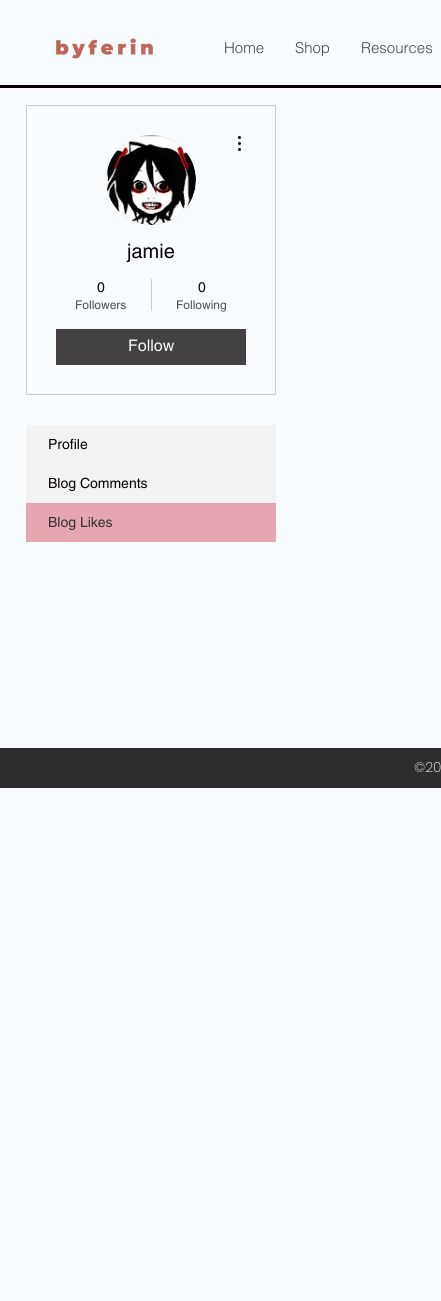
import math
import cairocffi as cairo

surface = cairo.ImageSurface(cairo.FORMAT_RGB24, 441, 1301)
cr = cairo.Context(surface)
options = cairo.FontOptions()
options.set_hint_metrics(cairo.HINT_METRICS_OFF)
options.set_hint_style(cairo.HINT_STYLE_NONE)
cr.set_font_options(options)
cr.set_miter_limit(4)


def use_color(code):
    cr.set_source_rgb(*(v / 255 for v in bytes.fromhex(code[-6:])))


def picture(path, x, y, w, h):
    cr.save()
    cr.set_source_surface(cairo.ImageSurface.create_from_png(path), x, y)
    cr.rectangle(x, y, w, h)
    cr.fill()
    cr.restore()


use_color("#f8fcff")
cr.paint()
picture("img1.png", 56, 38, 97, 21)
cr.select_font_face("helvetica Light")
cr.set_font_size(15)
use_color("#444444")
cr.move_to(224, 53)
cr.show_text("Home")
cr.move_to(295, 53)
cr.show_text("Shop")
cr.move_to(361, 53)
cr.show_text("Resources")
use_color("#080303")
cr.rectangle(0, 85, 441, 3)
cr.fill()
cr.rectangle(26.5, 105.5, 249, 289)
use_color("#c8cacd")
cr.set_line_width(1)
cr.stroke()
use_color("#d8d8d8")
cr.arc(151, 180, 45, 0, 2 * math.pi)
cr.fill()
picture("img2.png", 106, 135, 90, 90)
picture("img3.png", 238, 136, 3, 15)
cr.select_font_face("helvetica")
cr.set_font_size(20)
use_color("#080303")
cr.move_to(127, 258)
cr.show_text("jamie")
cr.set_font_size(14)
cr.move_to(97, 292)
cr.show_text("0")
cr.set_font_size(12)
use_color("#504e4f")
cr.move_to(75, 309)
cr.show_text("Followers")
use_color("#c8cacd")
cr.rectangle(151, 279, 1, 32)
cr.fill()
cr.set_font_size(14)
use_color("#080303")
cr.move_to(198, 292)
cr.show_text("0")
cr.set_font_size(12)
use_color("#504e4f")
cr.move_to(176, 309)
cr.show_text("Following")
use_color("#444142")
cr.rectangle(56, 329, 190, 36)
cr.fill()
cr.set_font_size(16)
use_color("#f8fcff")
cr.move_to(128, 351)
cr.show_text("Follow")
use_color("#f2f2f2")
cr.rectangle(26, 425, 250, 78)
cr.fill()
cr.set_font_size(14)
use_color("#080303")
cr.move_to(48, 449)
cr.show_text("Profile")
cr.move_to(48, 488)
cr.show_text("Blog Comments")
use_color("#e7a5b1")
cr.rectangle(26, 503, 250, 39)
cr.fill()
use_color("#323232")
cr.move_to(48, 527)
cr.show_text("Blog Likes")
use_color("#2f2e2e")
cr.rectangle(0, 748, 441, 40)
cr.fill()
cr.select_font_face("Poppins ExtraLight")
use_color("#f8fcff")
cr.move_to(414, 772)
cr.show_text("©20")
surface.write_to_png("result.png")
